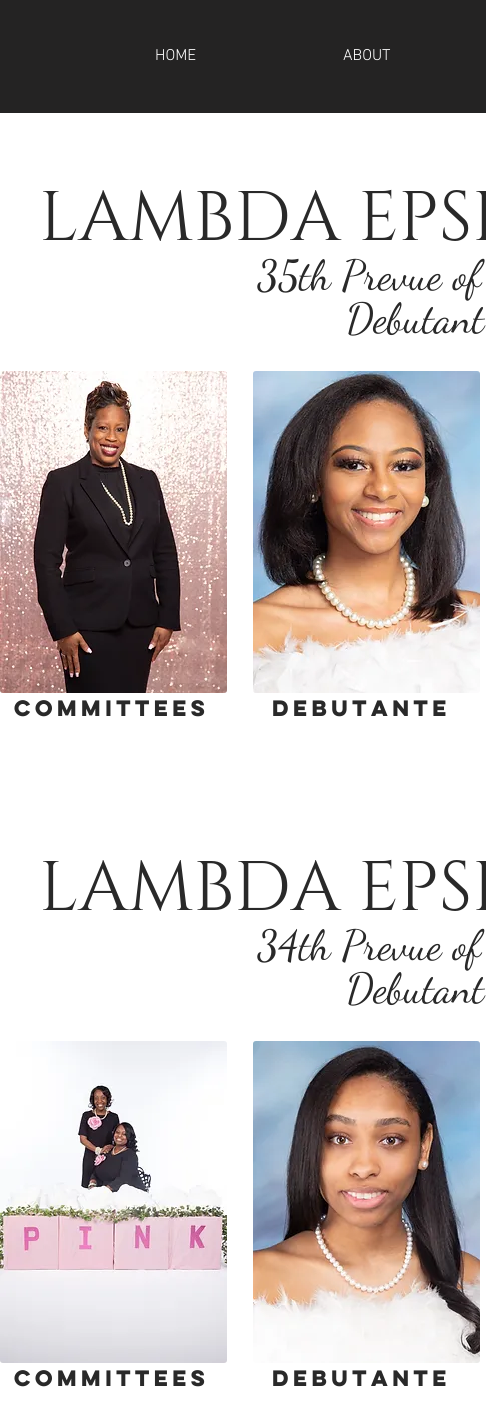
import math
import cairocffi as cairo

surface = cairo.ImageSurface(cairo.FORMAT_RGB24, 486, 1419)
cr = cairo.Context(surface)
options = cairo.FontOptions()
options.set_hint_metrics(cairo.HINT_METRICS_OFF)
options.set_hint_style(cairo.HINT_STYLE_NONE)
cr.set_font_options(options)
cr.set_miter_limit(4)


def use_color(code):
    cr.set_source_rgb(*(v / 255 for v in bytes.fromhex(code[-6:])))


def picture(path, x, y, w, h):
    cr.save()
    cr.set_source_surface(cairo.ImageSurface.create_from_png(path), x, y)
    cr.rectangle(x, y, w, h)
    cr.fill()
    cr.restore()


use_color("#ffffff")
cr.paint()
use_color("#242323")
cr.rectangle(0, 0, 486, 113)
cr.fill()
cr.select_font_face("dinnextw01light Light")
cr.set_font_size(16)
use_color("#ffffff")
cr.move_to(155, 60)
cr.show_text("HOME")
cr.move_to(343, 60)
cr.show_text("ABOUT")
cr.select_font_face("Cinzel")
cr.set_font_size(70)
use_color("#292929")
cr.move_to(39, 240)
cr.show_text("LAMBDA EPSI")
cr.select_font_face("Dancing Script")
cr.set_font_size(42)
cr.move_to(257, 289)
cr.show_text("35th Prevue of")
cr.move_to(346, 332)
cr.show_text("Debutant")
picture("img1.png", 253, 371, 227, 322)
picture("img2.png", 0, 371, 227, 322)
cr.select_font_face("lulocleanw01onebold", cairo.FONT_SLANT_NORMAL, cairo.FONT_WEIGHT_BOLD)
cr.set_font_size(20)
cr.move_to(14, 716)
cr.show_text("committees")
cr.move_to(272, 716)
cr.show_text("debutante")
cr.select_font_face("Cinzel")
cr.set_font_size(70)
cr.move_to(39, 910)
cr.show_text("LAMBDA EPSI")
cr.select_font_face("Dancing Script")
cr.set_font_size(42)
cr.move_to(257, 959)
cr.show_text("34th Prevue of")
cr.move_to(346, 1002)
cr.show_text("Debutant")
picture("img3.png", 0, 1041, 227, 322)
picture("img4.png", 253, 1041, 227, 322)
cr.select_font_face("lulocleanw01onebold", cairo.FONT_SLANT_NORMAL, cairo.FONT_WEIGHT_BOLD)
cr.set_font_size(20)
cr.move_to(14, 1386)
cr.show_text("committees")
cr.move_to(272, 1386)
cr.show_text("debutante")
surface.write_to_png("result.png")
